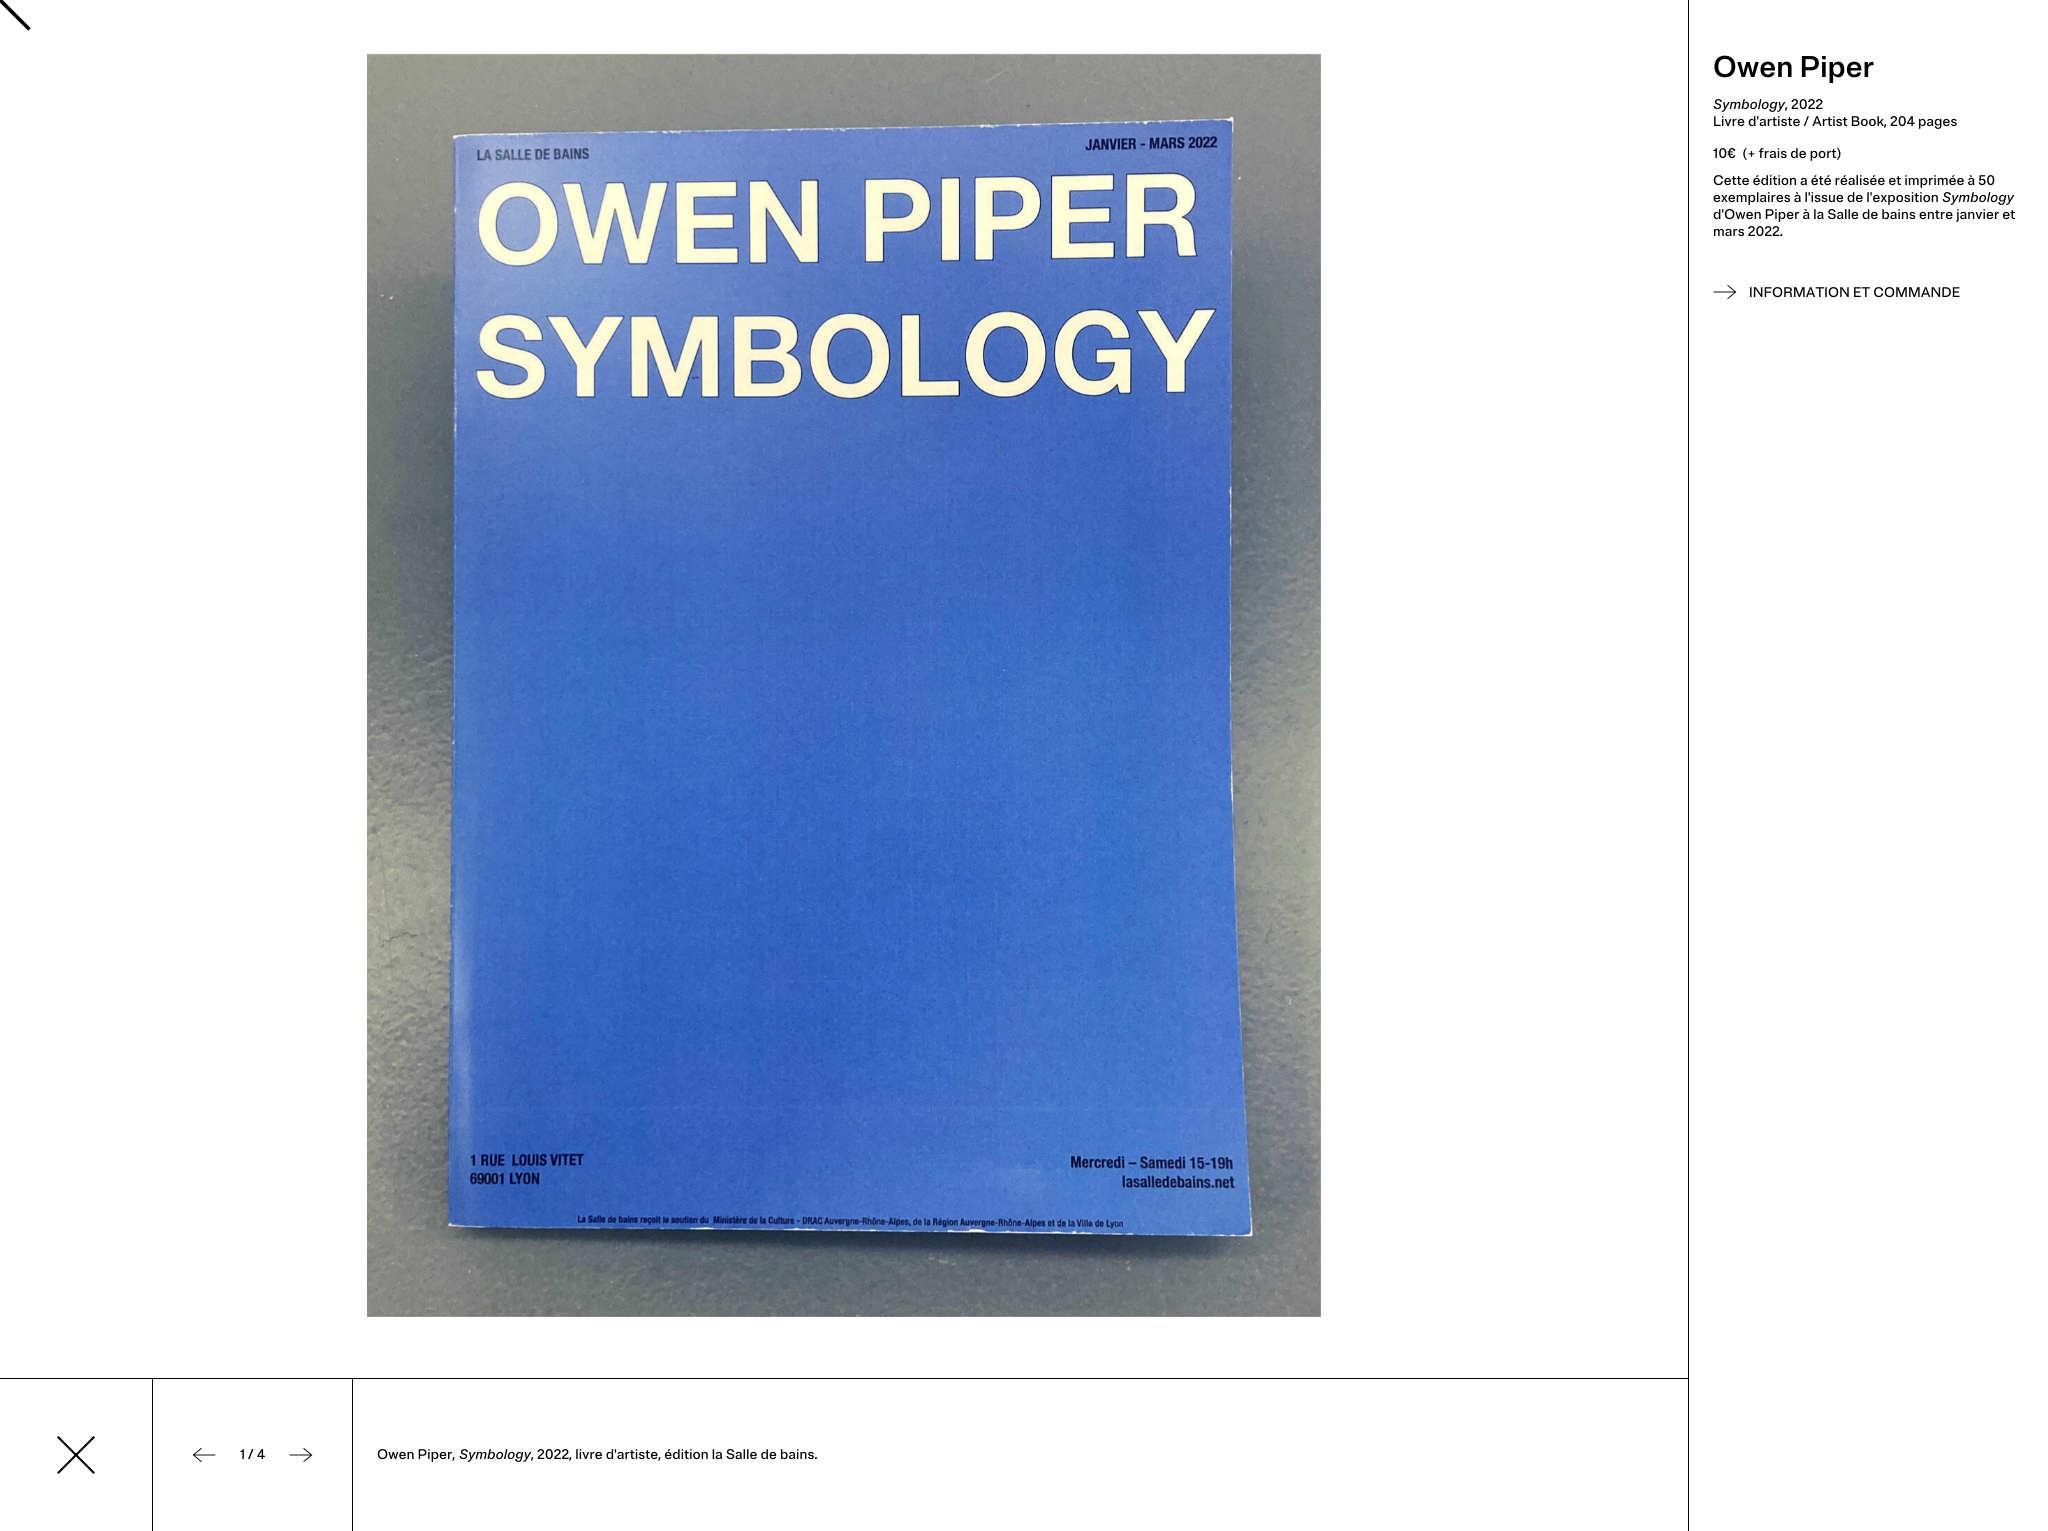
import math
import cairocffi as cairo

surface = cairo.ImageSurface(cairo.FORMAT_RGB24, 2048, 1531)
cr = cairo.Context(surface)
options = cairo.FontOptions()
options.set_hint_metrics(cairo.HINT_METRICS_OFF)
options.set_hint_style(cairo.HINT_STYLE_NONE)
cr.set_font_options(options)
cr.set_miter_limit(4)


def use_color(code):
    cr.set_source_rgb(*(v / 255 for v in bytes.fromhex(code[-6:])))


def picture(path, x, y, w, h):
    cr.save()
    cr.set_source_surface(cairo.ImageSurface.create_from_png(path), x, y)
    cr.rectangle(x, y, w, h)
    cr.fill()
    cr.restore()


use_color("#ffffff")
cr.paint()
picture("img1.png", 367, 53, 954, 1264)
use_color("#000000")
cr.rectangle(0, 1378, 1688, 1)
cr.fill()
cr.rectangle(152, 1379, 1, 152)
cr.fill()
cr.set_fill_rule(cairo.FILL_RULE_EVEN_ODD)
cr.new_path()
cr.move_to(76, 1453.5)
cr.line_to(93.5, 1436)
cr.line_to(95, 1437.5)
cr.line_to(77.5, 1455)
cr.line_to(95, 1472.5)
cr.line_to(93.5, 1474)
cr.line_to(76, 1456.5)
cr.line_to(58.5, 1474)
cr.line_to(57, 1472.5)
cr.line_to(74.5, 1455)
cr.line_to(57, 1437.5)
cr.line_to(58.5, 1436)
cr.close_path()
cr.fill()
cr.rectangle(352, 1379, 1, 152)
cr.fill()
picture("img2.png", 192, 1448, 24, 14)
picture("img3.png", 240, 1449, 4, 10)
cr.set_fill_rule(cairo.FILL_RULE_WINDING)
cr.new_path()
cr.move_to(253.5, 1449)
cr.line_to(252, 1449)
cr.line_to(248, 1459)
cr.line_to(249.5, 1459)
cr.close_path()
cr.fill()
picture("img4.png", 257, 1449, 8, 10)
picture("img5.png", 289, 1448, 24, 14)
picture("img6.png", 377, 1449, 78, 13)
picture("img7.png", 459, 1449, 73, 13)
picture("img8.png", 531, 1449, 286, 12)
cr.rectangle(1688, 0, 1, 1531)
cr.fill()
picture("img9.png", 1714, 55, 160, 28)
picture("img7.png", 1713, 99, 73, 13)
picture("img10.png", 1785, 99, 38, 12)
picture("img11.png", 1714, 116, 170, 11)
picture("img12.png", 1884, 116, 73, 13)
picture("img13.png", 1713, 148, 23, 11)
picture("img14.png", 1743, 147, 98, 14)
picture("img15.png", 1713, 175, 282, 13)
picture("img16.png", 1713, 192, 225, 13)
picture("img7.png", 1942, 192, 73, 13)
picture("img17.png", 1713, 209, 302, 13)
picture("img18.png", 1714, 226, 69, 11)
picture("img5.png", 1713, 285, 24, 14)
picture("img19.png", 1750, 287, 210, 11)
picture("img20.png", 0, 0, 31, 31)
surface.write_to_png("result.png")
